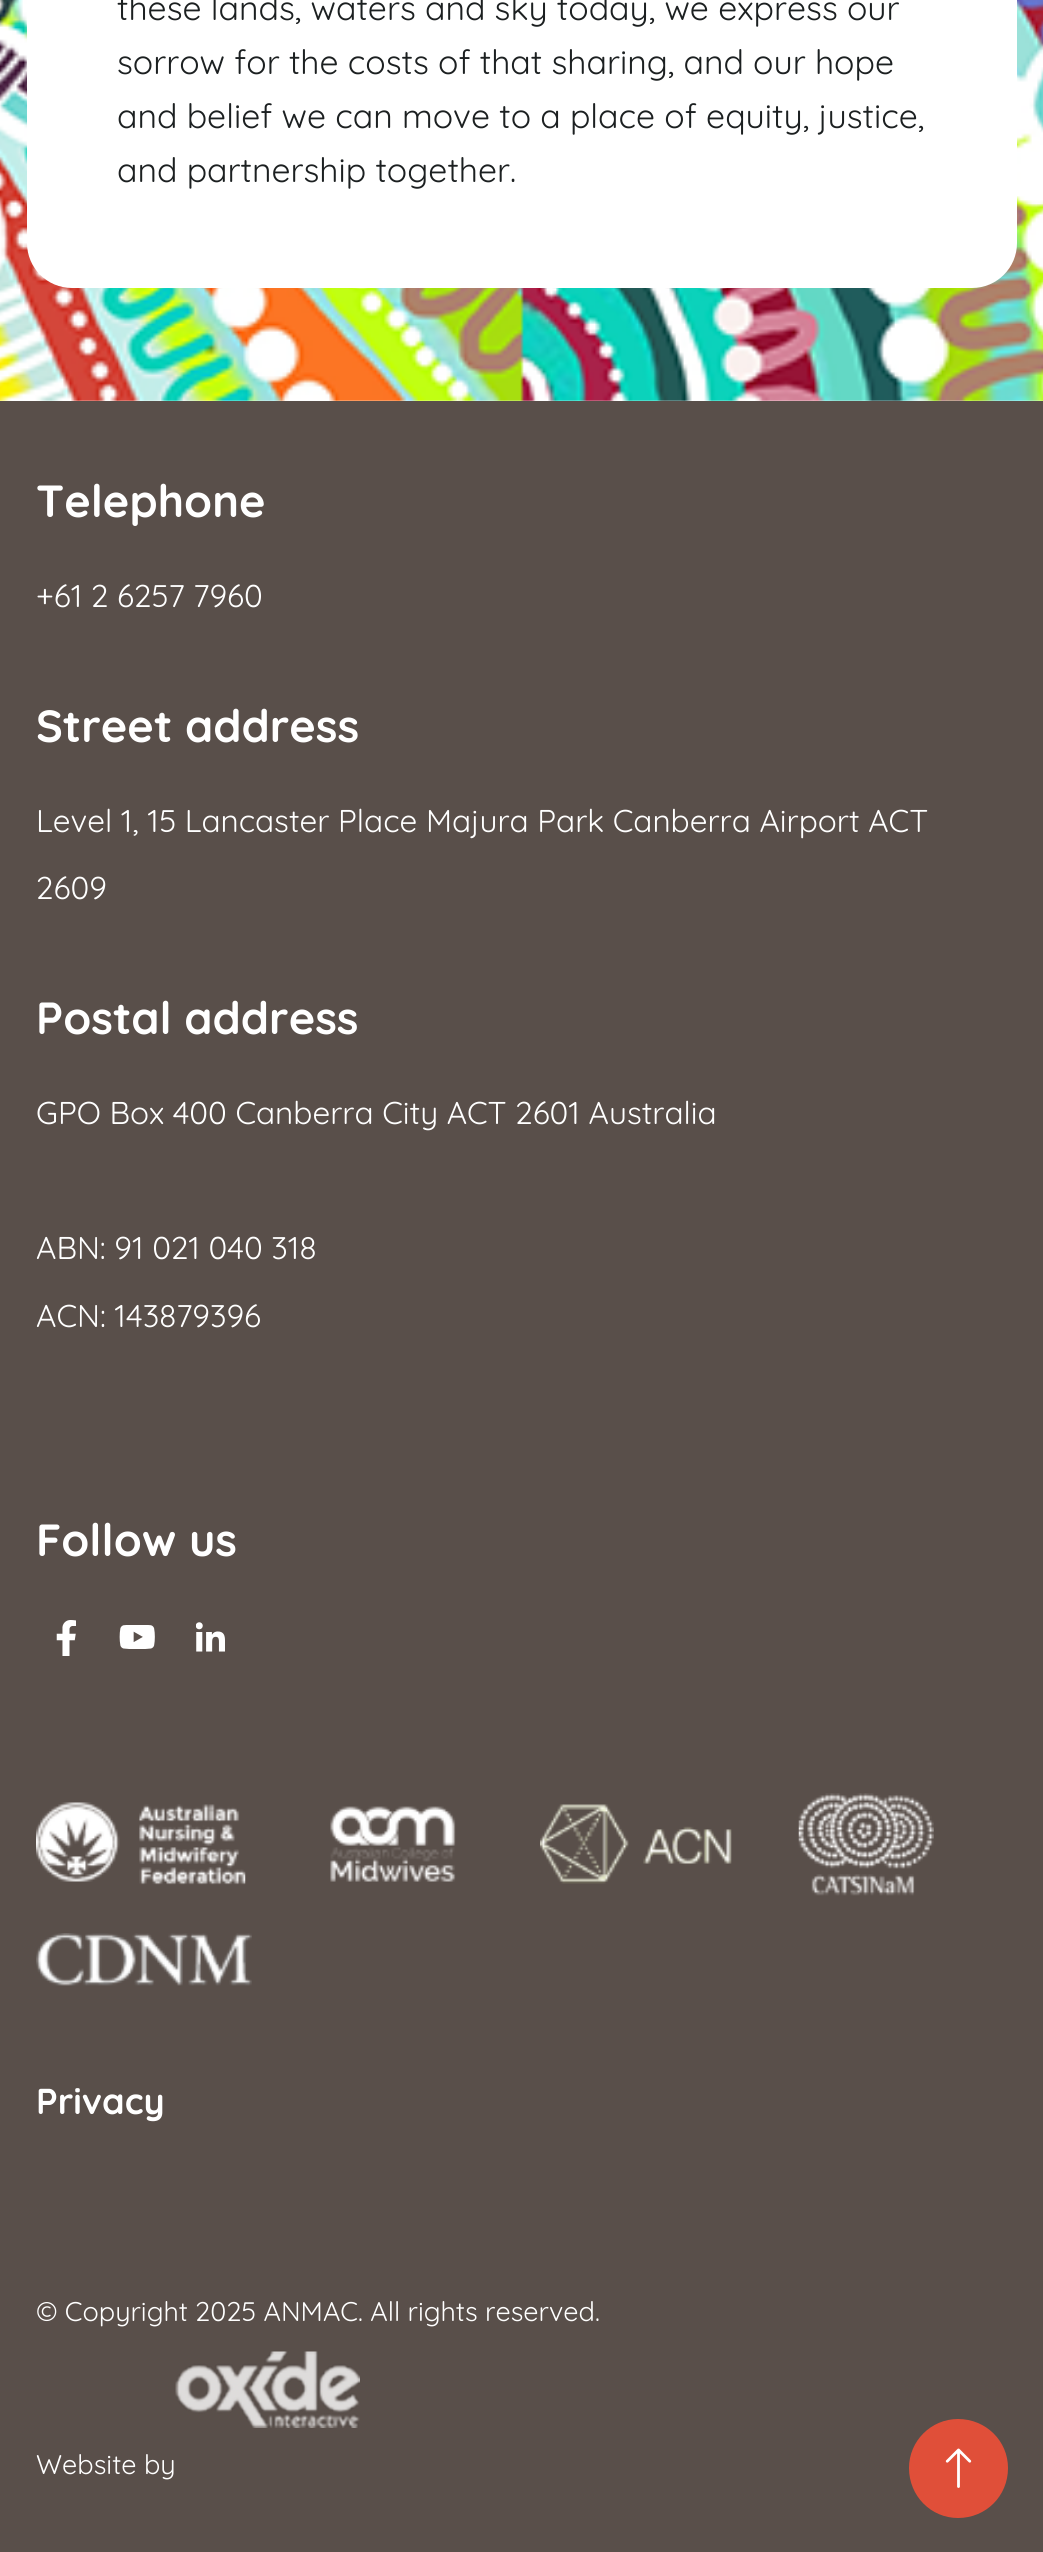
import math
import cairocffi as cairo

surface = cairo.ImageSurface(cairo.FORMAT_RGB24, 1043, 2552)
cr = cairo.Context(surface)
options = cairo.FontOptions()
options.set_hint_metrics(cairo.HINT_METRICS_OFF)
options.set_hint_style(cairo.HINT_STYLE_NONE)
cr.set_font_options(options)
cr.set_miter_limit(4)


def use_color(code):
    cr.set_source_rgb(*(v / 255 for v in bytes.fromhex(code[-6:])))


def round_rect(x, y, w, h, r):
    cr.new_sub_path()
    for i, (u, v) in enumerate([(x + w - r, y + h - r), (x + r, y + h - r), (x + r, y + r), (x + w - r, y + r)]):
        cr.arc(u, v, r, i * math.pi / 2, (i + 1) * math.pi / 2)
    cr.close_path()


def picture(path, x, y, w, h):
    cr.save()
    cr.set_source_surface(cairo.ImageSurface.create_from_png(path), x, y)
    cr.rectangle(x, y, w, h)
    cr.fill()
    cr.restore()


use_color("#ffffff")
cr.paint()
picture("img1.png", 0, 0, 1043, 401)
use_color("#ffffff")
round_rect(27, -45, 990, 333, 45)
cr.fill()
cr.select_font_face("Quicksand")
cr.set_font_size(33.75)
use_color("#1c2021")
cr.move_to(117, 20)
cr.show_text("these lands, waters and sky today, we express our")
cr.move_to(117, 74)
cr.show_text("sorrow for the costs of that sharing, and our hope")
cr.move_to(117, 128)
cr.show_text("and belief we can move to a place of equity, justice,")
cr.move_to(117, 182)
cr.show_text("and partnership together.")
use_color("#594f4a")
cr.rectangle(0, 401, 1043, 2151)
cr.fill()
cr.select_font_face("Quicksand", cairo.FONT_SLANT_NORMAL, cairo.FONT_WEIGHT_BOLD)
cr.set_font_size(45)
use_color("#ffffff")
cr.move_to(36, 517)
cr.show_text("Telephone")
cr.select_font_face("Quicksand")
cr.set_font_size(31.5)
cr.move_to(36, 607)
cr.show_text("+61 2 6257 7960")
cr.select_font_face("Quicksand", cairo.FONT_SLANT_NORMAL, cairo.FONT_WEIGHT_BOLD)
cr.set_font_size(45)
cr.move_to(36, 742)
cr.show_text("Street address")
cr.select_font_face("Quicksand")
cr.set_font_size(31.5)
cr.move_to(36, 832)
cr.show_text("Level 1, 15 Lancaster Place Majura Park Canberra Airport ACT")
cr.move_to(36, 899)
cr.show_text("2609")
cr.select_font_face("Quicksand", cairo.FONT_SLANT_NORMAL, cairo.FONT_WEIGHT_BOLD)
cr.set_font_size(45)
cr.move_to(36, 1034)
cr.show_text("Postal address")
cr.select_font_face("Quicksand")
cr.set_font_size(31.5)
cr.move_to(36, 1124)
cr.show_text("GPO Box 400 Canberra City ACT 2601 Australia")
cr.move_to(36, 1259)
cr.show_text("ABN: 91 021 040 318")
cr.move_to(36, 1327)
cr.show_text("ACN: 143879396")
cr.select_font_face("Quicksand", cairo.FONT_SLANT_NORMAL, cairo.FONT_WEIGHT_BOLD)
cr.set_font_size(45)
cr.move_to(36, 1556)
cr.show_text("Follow us")
picture("img2.png", 56, 1620, 20, 36)
picture("img3.png", 119, 1625, 36, 24)
picture("img4.png", 196, 1622, 29, 30)
picture("img5.png", 36, 1802, 210, 83)
picture("img6.png", 330, 1806, 126, 76)
picture("img7.png", 540, 1804, 192, 80)
picture("img8.png", 798, 1793, 136, 103)
picture("img9.png", 36, 1933, 216, 53)
cr.set_font_size(36)
cr.move_to(36, 2114)
cr.show_text("Privacy")
cr.select_font_face("Quicksand")
cr.set_font_size(27)
cr.move_to(36, 2321)
cr.show_text("© Copyright 2025 ANMAC. All rights reserved.")
picture("img10.png", 175, 2351, 185, 77)
cr.move_to(36, 2474)
cr.show_text("Website by")
use_color("#e04f39")
cr.new_path()
cr.move_to(909, 2468)
cr.curve_to(909, 2441, 931, 2419, 958, 2419)
cr.curve_to(986, 2419, 1008, 2441, 1008, 2468)
cr.curve_to(1008, 2496, 986, 2518, 958, 2518)
cr.curve_to(931, 2518, 909, 2496, 909, 2468)
cr.close_path()
cr.fill()
picture("img11.png", 945, 2448, 27, 40)
surface.write_to_png("result.png")
